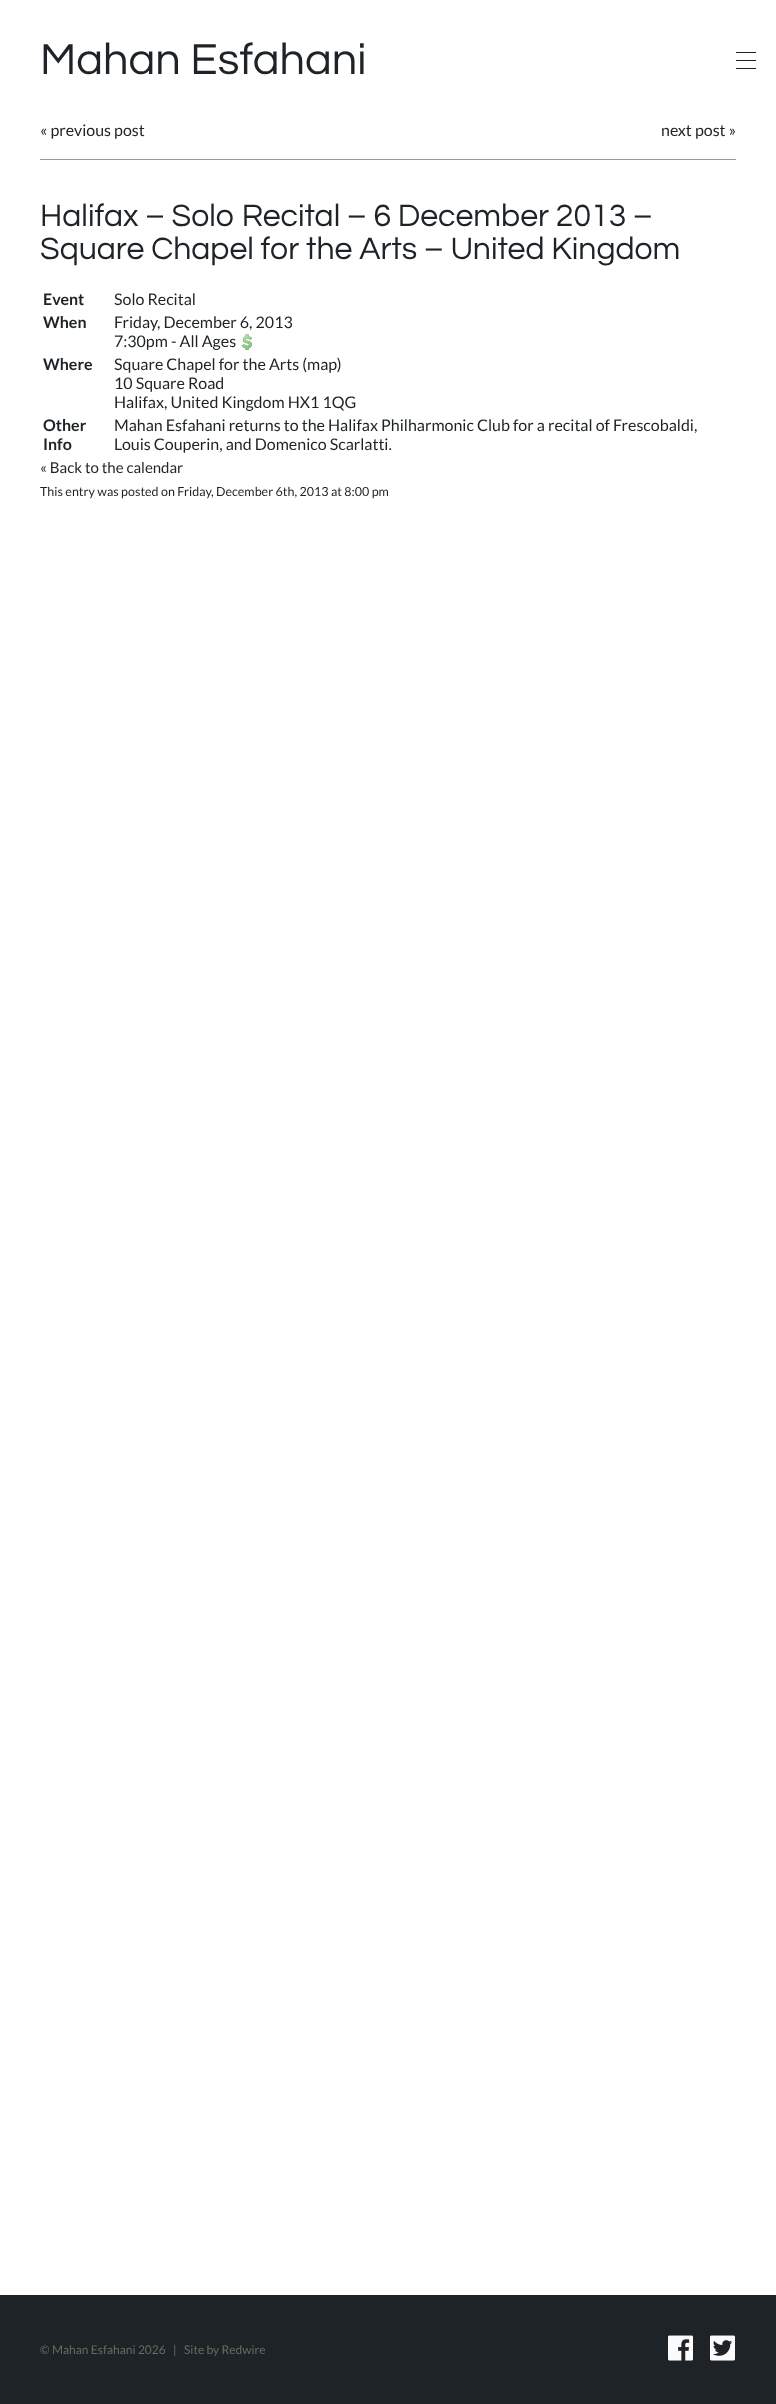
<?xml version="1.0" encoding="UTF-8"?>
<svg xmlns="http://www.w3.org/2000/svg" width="776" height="2404">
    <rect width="100%" height="100%" fill="#FFFFFF"/>
    <text x="40" y="74" font-family="Questrial" font-size="45" fill="#1D2326">Mahan Esfahani</text>
    <rect x="736" y="52" width="20" height="1" fill="#1D2326"/>
    <rect x="736" y="60" width="20" height="1" fill="#1D2326"/>
    <rect x="736" y="68" width="20" height="1" fill="#1D2326"/>
    <rect x="40" y="159" width="696" height="1" fill="#96989A"/>
    <text x="40" y="136" font-family="Lato" font-size="16" fill="#1D2326">« previous post</text>
    <text x="661" y="136" font-family="Lato" font-size="16" fill="#1D2326">next post »</text>
    <text font-family="Questrial" font-size="32" fill="#1D2326">
        <tspan x="40" y="226">Halifax – Solo Recital – 6 December 2013 –</tspan>
        <tspan x="40" y="259">Square Chapel for the Arts – United Kingdom</tspan>
    </text>
    <text x="43" y="305" font-family="Lato" font-size="16" font-weight="700" fill="#1D2326">Event</text>
    <text x="114" y="305" font-family="Lato" font-size="16" fill="#1D2326">Solo Recital</text>
    <text x="43" y="328" font-family="Lato" font-size="16" font-weight="700" fill="#1D2326">When</text>
    <text font-family="Lato" font-size="16" fill="#1D2326">
        <tspan x="114" y="328">Friday, December 6, 2013</tspan>
        <tspan x="114" y="347">7:30pm - All Ages</tspan>
    </text>
    <image x="241" y="334" width="11" height="16" href="img_01.png"/>
    <text x="43" y="370" font-family="Lato" font-size="16" font-weight="700" fill="#1D2326">Where</text>
    <text font-family="Lato" font-size="16" fill="#1D2326">
        <tspan x="114" y="370">Square Chapel for the Arts (map)</tspan>
        <tspan x="114" y="389">10 Square Road</tspan>
        <tspan x="114" y="408">Halifax, United Kingdom HX1 1QG</tspan>
    </text>
    <text font-family="Lato" font-size="16" font-weight="700" fill="#1D2326">
        <tspan x="43" y="431">Other</tspan>
        <tspan x="43" y="450">Info</tspan>
    </text>
    <text font-family="Lato" font-size="16" fill="#1D2326">
        <tspan x="114" y="431">Mahan Esfahani returns to the Halifax Philharmonic Club for a recital of Frescobaldi,</tspan>
        <tspan x="114" y="450">Louis Couperin, and Domenico Scarlatti.</tspan>
    </text>
    <text x="40" y="473" font-family="Lato" font-size="15" fill="#1D2326">« Back to the calendar</text>
    <text x="40" y="496" font-family="Lato" font-size="12.5" fill="#1D2326">This entry was posted on Friday, December 6th, 2013 at 8:00 pm</text>
    <rect x="0" y="2295" width="776" height="109" fill="#1D2326"/>
    <text x="40" y="2354" font-family="Lato" font-size="12" fill="#6A6A60">© Mahan Esfahani 2026</text>
    <text x="173" y="2354" font-family="Lato" font-size="12" fill="#6A6A60">|</text>
    <text x="184" y="2354" font-family="Lato" font-size="12" fill="#6A6A60">Site by Redwire</text>
    <image x="668" y="2335" width="25" height="26" href="img_02.png"/>
    <image x="710" y="2335" width="25" height="26" href="img_03.png"/>
</svg>
